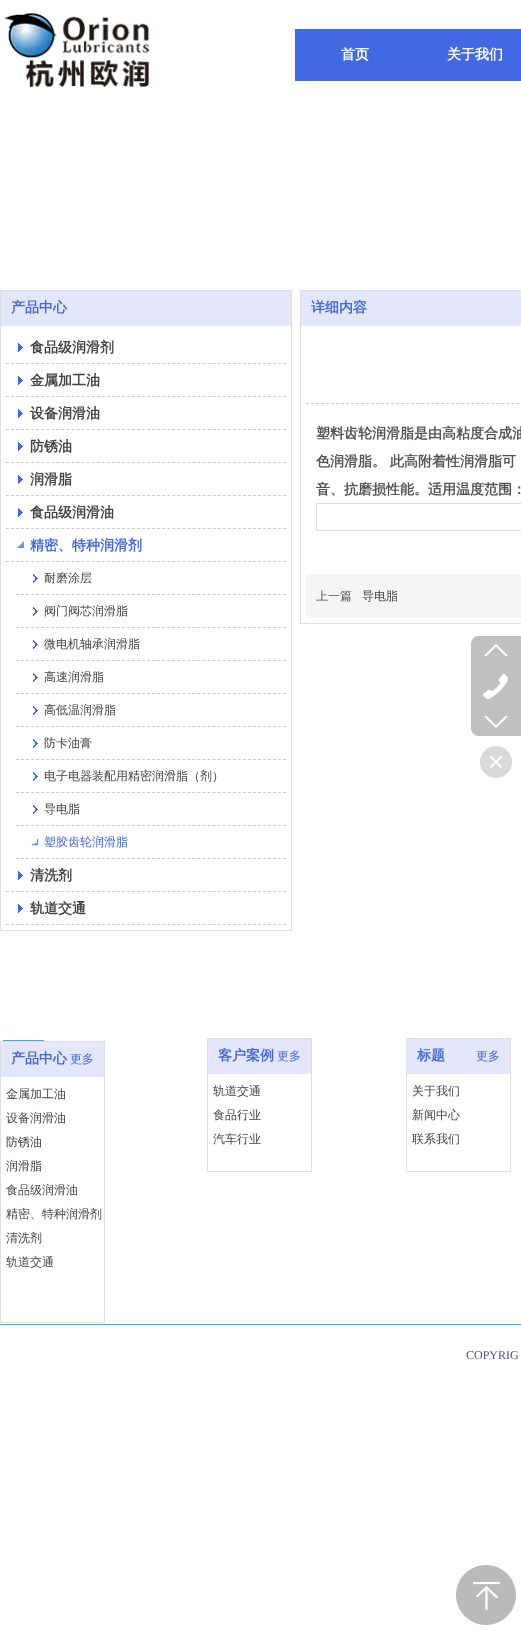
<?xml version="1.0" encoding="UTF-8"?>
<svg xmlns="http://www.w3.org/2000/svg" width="521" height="1630">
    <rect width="100%" height="100%" fill="#FFFFFF"/>
    <image x="4" y="12" width="146" height="75" href="img_01.png"/>
    <rect x="295" y="29" width="226" height="52" fill="#4169E2"/>
    <text x="341" y="59" font-family="WenQuanYi Zen Hei" font-size="14" font-weight="700" fill="#FFFFFF">首页</text>
    <text x="447" y="59" font-family="WenQuanYi Zen Hei" font-size="14" font-weight="700" fill="#FFFFFF">关于我们</text>
    <rect x="0.5" y="290.5" width="291" height="640" fill="none" stroke="#E0DFDD"/>
    <rect x="1" y="291" width="290" height="35" fill="#E4E6FB"/>
    <text x="11" y="312" font-family="WenQuanYi Zen Hei" font-size="14" font-weight="700" fill="#4269E0">产品中心</text>
    <path d="M 6 363.5 H 286" fill="none" stroke="#CCCCCC" stroke-dasharray="3 2.04"/>
    <image x="18" y="343" width="5" height="9" href="img_02.png"/>
    <text x="30" y="352" font-family="WenQuanYi Zen Hei" font-size="14" font-weight="700" fill="#434343">食品级润滑剂</text>
    <path d="M 6 396.5 H 286" fill="none" stroke="#CCCCCC" stroke-dasharray="3 2.04"/>
    <image x="18" y="376" width="5" height="9" href="img_02.png"/>
    <text x="30" y="385" font-family="WenQuanYi Zen Hei" font-size="14" font-weight="700" fill="#434343">金属加工油</text>
    <path d="M 6 429.5 H 286" fill="none" stroke="#CCCCCC" stroke-dasharray="3 2.04"/>
    <image x="18" y="409" width="5" height="9" href="img_02.png"/>
    <text x="30" y="418" font-family="WenQuanYi Zen Hei" font-size="14" font-weight="700" fill="#434343">设备润滑油</text>
    <path d="M 6 462.5 H 286" fill="none" stroke="#CCCCCC" stroke-dasharray="3 2.04"/>
    <image x="18" y="442" width="5" height="9" href="img_02.png"/>
    <text x="30" y="451" font-family="WenQuanYi Zen Hei" font-size="14" font-weight="700" fill="#434343">防锈油</text>
    <path d="M 6 495.5 H 286" fill="none" stroke="#CCCCCC" stroke-dasharray="3 2.04"/>
    <image x="18" y="475" width="5" height="9" href="img_02.png"/>
    <text x="30" y="484" font-family="WenQuanYi Zen Hei" font-size="14" font-weight="700" fill="#434343">润滑脂</text>
    <path d="M 6 528.5 H 286" fill="none" stroke="#CCCCCC" stroke-dasharray="3 2.04"/>
    <image x="18" y="508" width="5" height="9" href="img_02.png"/>
    <text x="30" y="517" font-family="WenQuanYi Zen Hei" font-size="14" font-weight="700" fill="#434343">食品级润滑油</text>
    <path d="M 6 561.5 H 286" fill="none" stroke="#CCCCCC" stroke-dasharray="3 2.04"/>
    <image x="17" y="541" width="7" height="7" href="img_03.png"/>
    <text x="30" y="550" font-family="WenQuanYi Zen Hei" font-size="14" font-weight="700" fill="#4269E0">精密、特种润滑剂</text>
    <path d="M 16 594.5 H 286" fill="none" stroke="#CCCCCC" stroke-dasharray="3 2.04"/>
    <image x="33" y="574" width="5" height="9" href="img_04.png"/>
    <text x="44" y="582" font-family="WenQuanYi Zen Hei" font-size="12" font-weight="500" fill="#434343">耐磨涂层</text>
    <path d="M 16 627.5 H 286" fill="none" stroke="#CCCCCC" stroke-dasharray="3 2.04"/>
    <image x="33" y="607" width="5" height="9" href="img_04.png"/>
    <text x="44" y="615" font-family="WenQuanYi Zen Hei" font-size="12" font-weight="500" fill="#434343">阀门阀芯润滑脂</text>
    <path d="M 16 660.5 H 286" fill="none" stroke="#CCCCCC" stroke-dasharray="3 2.04"/>
    <image x="33" y="640" width="5" height="9" href="img_04.png"/>
    <text x="44" y="648" font-family="WenQuanYi Zen Hei" font-size="12" font-weight="500" fill="#434343">微电机轴承润滑脂</text>
    <path d="M 16 693.5 H 286" fill="none" stroke="#CCCCCC" stroke-dasharray="3 2.04"/>
    <image x="33" y="673" width="5" height="9" href="img_04.png"/>
    <text x="44" y="681" font-family="WenQuanYi Zen Hei" font-size="12" font-weight="500" fill="#434343">高速润滑脂</text>
    <path d="M 16 726.5 H 286" fill="none" stroke="#CCCCCC" stroke-dasharray="3 2.04"/>
    <image x="33" y="706" width="5" height="9" href="img_04.png"/>
    <text x="44" y="714" font-family="WenQuanYi Zen Hei" font-size="12" font-weight="500" fill="#434343">高低温润滑脂</text>
    <path d="M 16 759.5 H 286" fill="none" stroke="#CCCCCC" stroke-dasharray="3 2.04"/>
    <image x="33" y="739" width="5" height="9" href="img_04.png"/>
    <text x="44" y="747" font-family="WenQuanYi Zen Hei" font-size="12" font-weight="500" fill="#434343">防卡油膏</text>
    <path d="M 16 792.5 H 286" fill="none" stroke="#CCCCCC" stroke-dasharray="3 2.04"/>
    <image x="33" y="772" width="5" height="9" href="img_04.png"/>
    <text x="44" y="780" font-family="WenQuanYi Zen Hei" font-size="12" font-weight="500" fill="#434343">电子电器装配用精密润滑脂（剂）</text>
    <path d="M 16 825.5 H 286" fill="none" stroke="#CCCCCC" stroke-dasharray="3 2.04"/>
    <image x="33" y="805" width="5" height="9" href="img_04.png"/>
    <text x="44" y="813" font-family="WenQuanYi Zen Hei" font-size="12" font-weight="500" fill="#434343">导电脂</text>
    <path d="M 16 858.5 H 286" fill="none" stroke="#CCCCCC" stroke-dasharray="3 2.04"/>
    <image x="31" y="838" width="8" height="8" href="img_05.png"/>
    <text x="44" y="846" font-family="WenQuanYi Zen Hei" font-size="12" font-weight="500" fill="#4269E0">塑胶齿轮润滑脂</text>
    <path d="M 6 891.5 H 286" fill="none" stroke="#CCCCCC" stroke-dasharray="3 2.04"/>
    <image x="18" y="871" width="5" height="9" href="img_02.png"/>
    <text x="30" y="880" font-family="WenQuanYi Zen Hei" font-size="14" font-weight="700" fill="#434343">清洗剂</text>
    <path d="M 6 924.5 H 286" fill="none" stroke="#CCCCCC" stroke-dasharray="3 2.04"/>
    <image x="18" y="904" width="5" height="9" href="img_02.png"/>
    <text x="30" y="913" font-family="WenQuanYi Zen Hei" font-size="14" font-weight="700" fill="#434343">轨道交通</text>
    <rect x="300.5" y="290.5" width="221" height="333" fill="none" stroke="#E0DFDD"/>
    <rect x="301" y="291" width="220" height="35" fill="#E4E6FB"/>
    <text x="311" y="312" font-family="WenQuanYi Zen Hei" font-size="14" font-weight="700" fill="#4269E0">详细内容</text>
    <path d="M 306 403.5 H 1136" fill="none" stroke="#CCCCCC" stroke-dasharray="3 2.01"/>
    <text x="316" y="438" font-family="WenQuanYi Zen Hei" font-size="14" font-weight="700" fill="#545454">塑料齿轮润滑脂是由高粘度合成油</text>
    <text x="316" y="466" font-family="WenQuanYi Zen Hei" font-size="14" font-weight="700" fill="#545454">色润滑脂。</text>
    <text x="390" y="466" font-family="WenQuanYi Zen Hei" font-size="14" font-weight="700" fill="#545454">此高附着性润滑脂可</text>
    <text x="316" y="494" font-family="WenQuanYi Zen Hei" font-size="14" font-weight="700" fill="#545454">音、抗磨损性能。适用温度范围：</text>
    <rect x="316" y="503" width="205" height="1" fill="#DDDDDD"/>
    <rect x="316" y="530" width="205" height="1" fill="#DDDDDD"/>
    <rect x="316" y="503" width="1" height="28" fill="#DDDDDD"/>
    <rect x="306" y="574" width="215" height="44" fill="#F5F5F5"/>
    <text x="316" y="600" font-family="WenQuanYi Zen Hei" font-size="12" font-weight="500" fill="#545454">上一篇</text>
    <text x="362" y="600" font-family="WenQuanYi Zen Hei" font-size="12" font-weight="500" fill="#434343">导电脂</text>
    <image x="471" y="636" width="7" height="7" href="img_06.png"/>
    <rect x="478" y="636" width="43" height="7" fill="#C1BFC0"/>
    <rect x="471" y="643" width="50" height="86" fill="#C1BFC0"/>
    <image x="484" y="644" width="24" height="12" href="img_07.png"/>
    <image x="483" y="674" width="25" height="25" href="img_08.png"/>
    <image x="484" y="716" width="24" height="12" href="img_09.png"/>
    <image x="471" y="729" width="7" height="7" href="img_10.png"/>
    <rect x="478" y="729" width="43" height="7" fill="#C1BFC0"/>
    <image x="480" y="746" width="32" height="32" href="img_11.png"/>
    <rect x="3" y="1040" width="41" height="1" fill="#36B0F3"/>
    <rect x="0.5" y="1041.5" width="104" height="281" fill="none" stroke="#E0DFDD"/>
    <rect x="1" y="1042" width="103" height="35" fill="#E4E6FB"/>
    <text x="11" y="1063" font-family="WenQuanYi Zen Hei" font-size="14" font-weight="700" fill="#4269E0">产品中心</text>
    <text x="70" y="1063" font-family="WenQuanYi Zen Hei" font-size="12" font-weight="500" fill="#4269E0">更多</text>
    <text x="6" y="1098" font-family="WenQuanYi Zen Hei" font-size="12" font-weight="500" fill="#434343">金属加工油</text>
    <text x="6" y="1122" font-family="WenQuanYi Zen Hei" font-size="12" font-weight="500" fill="#434343">设备润滑油</text>
    <text x="6" y="1146" font-family="WenQuanYi Zen Hei" font-size="12" font-weight="500" fill="#434343">防锈油</text>
    <text x="6" y="1170" font-family="WenQuanYi Zen Hei" font-size="12" font-weight="500" fill="#434343">润滑脂</text>
    <text x="6" y="1194" font-family="WenQuanYi Zen Hei" font-size="12" font-weight="500" fill="#434343">食品级润滑油</text>
    <text x="6" y="1218" font-family="WenQuanYi Zen Hei" font-size="12" font-weight="500" fill="#434343">精密、特种润滑剂</text>
    <text x="6" y="1242" font-family="WenQuanYi Zen Hei" font-size="12" font-weight="500" fill="#434343">清洗剂</text>
    <text x="6" y="1266" font-family="WenQuanYi Zen Hei" font-size="12" font-weight="500" fill="#434343">轨道交通</text>
    <rect x="207.5" y="1038.5" width="104" height="133" fill="none" stroke="#E0DFDD"/>
    <rect x="208" y="1039" width="103" height="35" fill="#E4E6FB"/>
    <text x="218" y="1060" font-family="WenQuanYi Zen Hei" font-size="14" font-weight="700" fill="#4269E0">客户案例</text>
    <text x="277" y="1060" font-family="WenQuanYi Zen Hei" font-size="12" font-weight="500" fill="#4269E0">更多</text>
    <text x="213" y="1095" font-family="WenQuanYi Zen Hei" font-size="12" font-weight="500" fill="#434343">轨道交通</text>
    <text x="213" y="1119" font-family="WenQuanYi Zen Hei" font-size="12" font-weight="500" fill="#434343">食品行业</text>
    <text x="213" y="1143" font-family="WenQuanYi Zen Hei" font-size="12" font-weight="500" fill="#434343">汽车行业</text>
    <rect x="406.5" y="1038.5" width="104" height="133" fill="none" stroke="#E0DFDD"/>
    <rect x="407" y="1039" width="103" height="35" fill="#E4E6FB"/>
    <text x="417" y="1060" font-family="WenQuanYi Zen Hei" font-size="14" font-weight="700" fill="#4269E0">标题</text>
    <text x="476" y="1060" font-family="WenQuanYi Zen Hei" font-size="12" font-weight="500" fill="#4269E0">更多</text>
    <text x="412" y="1095" font-family="WenQuanYi Zen Hei" font-size="12" font-weight="500" fill="#434343">关于我们</text>
    <text x="412" y="1119" font-family="WenQuanYi Zen Hei" font-size="12" font-weight="500" fill="#434343">新闻中心</text>
    <text x="412" y="1143" font-family="WenQuanYi Zen Hei" font-size="12" font-weight="500" fill="#434343">联系我们</text>
    <rect x="0" y="1324" width="521" height="1" fill="#36B0F3"/>
    <text x="466" y="1359" font-family="Liberation Serif" font-size="12" fill="#515181">COPYRIG</text>
    <image x="456" y="1565" width="60" height="60" href="img_12.png"/>
</svg>
